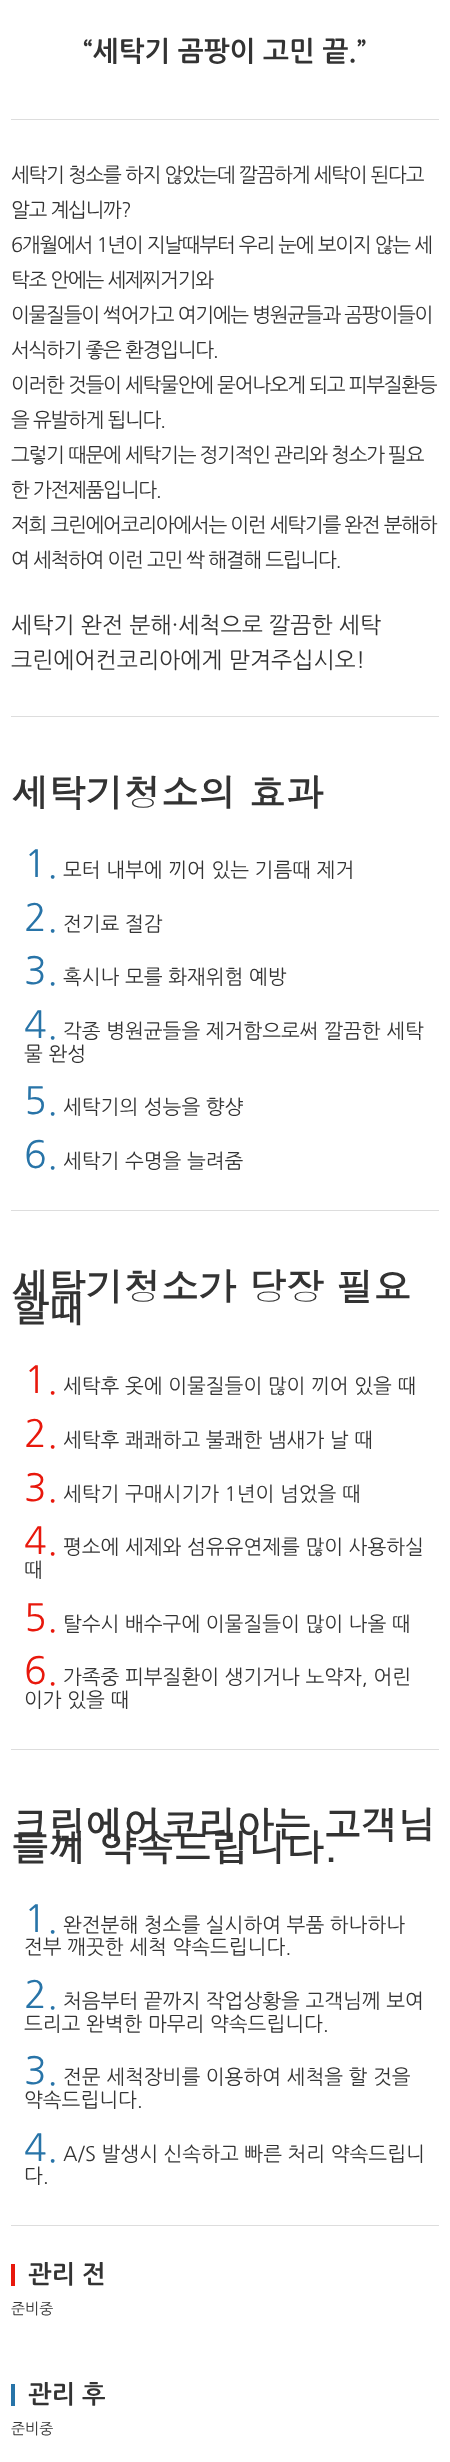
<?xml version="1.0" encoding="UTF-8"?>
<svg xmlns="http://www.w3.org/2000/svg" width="450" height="2462">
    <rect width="100%" height="100%" fill="#FFFFFF"/>
    <text x="83" y="61" font-family="NanumGothic" font-size="27.5" font-weight="700" fill="#333333">“세탁기 곰팡이 고민 끝.”</text>
    <rect x="11" y="119" width="428" height="1" fill="#DDDDDD"/>
    <text font-family="NanumGothic" font-size="20" letter-spacing="-1.25" fill="#333333">
        <tspan x="11" y="182">세탁기 청소를 하지 않았는데 깔끔하게 세탁이 된다고</tspan>
        <tspan x="11" y="217">알고 계십니까?</tspan>
        <tspan x="11" y="252">6개월에서 1년이 지날때부터 우리 눈에 보이지 않는 세</tspan>
        <tspan x="11" y="287">탁조 안에는 세제찌거기와</tspan>
        <tspan x="11" y="322">이물질들이 썩어가고 여기에는 병원균들과 곰팡이들이</tspan>
        <tspan x="11" y="357">서식하기 좋은 환경입니다.</tspan>
        <tspan x="11" y="392">이러한 것들이 세탁물안에 묻어나오게 되고 피부질환등</tspan>
        <tspan x="11" y="427">을 유발하게 됩니다.</tspan>
        <tspan x="11" y="462">그렇기 때문에 세탁기는 정기적인 관리와 청소가 필요</tspan>
        <tspan x="11" y="497">한 가전제품입니다.</tspan>
        <tspan x="11" y="532">저희 크린에어코리아에서는 이런 세탁기를 완전 분해하</tspan>
        <tspan x="11" y="567">여 세척하여 이런 고민 싹 해결해 드립니다.</tspan>
    </text>
    <text font-family="NanumGothic" font-size="22.5" fill="#333333">
        <tspan x="11" y="633">세탁기 완전 분해·세척으로 깔끔한 세탁</tspan>
        <tspan x="11" y="668">크린에어컨코리아에게 맏겨주십시오!</tspan>
    </text>
    <rect x="11" y="716" width="428" height="1" fill="#DDDDDD"/>
    <text x="11" y="807" font-family="Dotum" font-size="37.5" font-weight="700" fill="#333333">세탁기청소의 효과</text>
    <text x="24" y="877" font-family="NanumGothic" font-size="37.5" fill="#2874A8">1.</text>
    <text x="63" y="877" font-family="NanumGothic" font-size="20" fill="#333333">모터 내부에 끼어 있는 기름때 제거</text>
    <text x="24" y="931" font-family="NanumGothic" font-size="37.5" fill="#2874A8">2.</text>
    <text x="63" y="931" font-family="NanumGothic" font-size="20" fill="#333333">전기료 절감</text>
    <text x="24" y="984" font-family="NanumGothic" font-size="37.5" fill="#2874A8">3.</text>
    <text x="63" y="984" font-family="NanumGothic" font-size="20" fill="#333333">혹시나 모를 화재위험 예방</text>
    <text x="24" y="1038" font-family="NanumGothic" font-size="37.5" fill="#2874A8">4.</text>
    <text x="63" y="1038" font-family="NanumGothic" font-size="20" fill="#333333">각종 병원균들을 제거함으로써 깔끔한 세탁</text>
    <text x="24" y="1061" font-family="NanumGothic" font-size="20" fill="#333333">물 완성</text>
    <text x="24" y="1114" font-family="NanumGothic" font-size="37.5" fill="#2874A8">5.</text>
    <text x="63" y="1114" font-family="NanumGothic" font-size="20" fill="#333333">세탁기의 성능을 향샹</text>
    <text x="24" y="1168" font-family="NanumGothic" font-size="37.5" fill="#2874A8">6.</text>
    <text x="63" y="1168" font-family="NanumGothic" font-size="20" fill="#333333">세탁기 수명을 늘려줌</text>
    <rect x="11" y="1210" width="428" height="1" fill="#DDDDDD"/>
    <text font-family="Dotum" font-size="37.5" font-weight="700" fill="#333333">
        <tspan x="11" y="1301">세탁기청소가 당장 필요</tspan>
        <tspan x="11" y="1323">할때</tspan>
    </text>
    <text x="24" y="1393" font-family="NanumGothic" font-size="37.5" fill="#E8180C">1.</text>
    <text x="63" y="1393" font-family="NanumGothic" font-size="20" fill="#333333">세탁후 옷에 이물질들이 많이 끼어 있을 때</text>
    <text x="24" y="1447" font-family="NanumGothic" font-size="37.5" fill="#E8180C">2.</text>
    <text x="63" y="1447" font-family="NanumGothic" font-size="20" fill="#333333">세탁후 쾌쾌하고 불쾌한 냄새가 날 때</text>
    <text x="24" y="1501" font-family="NanumGothic" font-size="37.5" fill="#E8180C">3.</text>
    <text x="63" y="1501" font-family="NanumGothic" font-size="20" fill="#333333">세탁기 구매시기가 1년이 넘었을 때</text>
    <text x="24" y="1554" font-family="NanumGothic" font-size="37.5" fill="#E8180C">4.</text>
    <text x="63" y="1554" font-family="NanumGothic" font-size="20" fill="#333333">평소에 세제와 섬유유연제를 많이 사용하실</text>
    <text x="24" y="1577" font-family="NanumGothic" font-size="20" fill="#333333">때</text>
    <text x="24" y="1631" font-family="NanumGothic" font-size="37.5" fill="#E8180C">5.</text>
    <text x="63" y="1631" font-family="NanumGothic" font-size="20" fill="#333333">탈수시 배수구에 이물질들이 많이 나올 때</text>
    <text x="24" y="1684" font-family="NanumGothic" font-size="37.5" fill="#E8180C">6.</text>
    <text x="63" y="1684" font-family="NanumGothic" font-size="20" fill="#333333">가족중 피부질환이 생기거나 노약자, 어린</text>
    <text x="24" y="1707" font-family="NanumGothic" font-size="20" fill="#333333">이가 있을 때</text>
    <rect x="11" y="1749" width="428" height="1" fill="#DDDDDD"/>
    <text font-family="Dotum" font-size="37.5" font-weight="700" fill="#333333">
        <tspan x="11" y="1839">크린에어코리아는 고객님</tspan>
        <tspan x="11" y="1862">들께 약속드립니다.</tspan>
    </text>
    <text x="24" y="1932" font-family="NanumGothic" font-size="37.5" fill="#2874A8">1.</text>
    <text x="63" y="1932" font-family="NanumGothic" font-size="20" fill="#333333">완전분해 청소를 실시하여 부품 하나하나</text>
    <text x="24" y="1954" font-family="NanumGothic" font-size="20" fill="#333333">전부 깨끗한 세척 약속드립니다.</text>
    <text x="24" y="2008" font-family="NanumGothic" font-size="37.5" fill="#2874A8">2.</text>
    <text x="63" y="2008" font-family="NanumGothic" font-size="20" fill="#333333">처음부터 끝까지 작업상황을 고객님께 보여</text>
    <text x="24" y="2031" font-family="NanumGothic" font-size="20" fill="#333333">드리고 완벽한 마무리 약속드립니다.</text>
    <text x="24" y="2084" font-family="NanumGothic" font-size="37.5" fill="#2874A8">3.</text>
    <text x="63" y="2084" font-family="NanumGothic" font-size="20" fill="#333333">전문 세척장비를 이용하여 세척을 할 것을</text>
    <text x="24" y="2107" font-family="NanumGothic" font-size="20" fill="#333333">약속드립니다.</text>
    <text x="24" y="2161" font-family="NanumGothic" font-size="37.5" fill="#2874A8">4.</text>
    <text x="63" y="2161" font-family="NanumGothic" font-size="20" fill="#333333">A/S 발생시 신속하고 빠른 처리 약속드립니</text>
    <text x="24" y="2183" font-family="NanumGothic" font-size="20" fill="#333333">다.</text>
    <rect x="11" y="2225" width="428" height="1" fill="#DDDDDD"/>
    <rect x="11" y="2264" width="4" height="22" fill="#E8180C"/>
    <text x="28" y="2283" font-family="NanumGothic" font-size="25" font-weight="700" fill="#333333">관리 전</text>
    <text x="11" y="2314" font-family="NanumGothic" font-size="15" fill="#333333">준비중</text>
    <rect x="11" y="2384" width="4" height="22" fill="#2874A8"/>
    <text x="28" y="2403" font-family="NanumGothic" font-size="25" font-weight="700" fill="#333333">관리 후</text>
    <text x="11" y="2434" font-family="NanumGothic" font-size="15" fill="#333333">준비중</text>
</svg>
